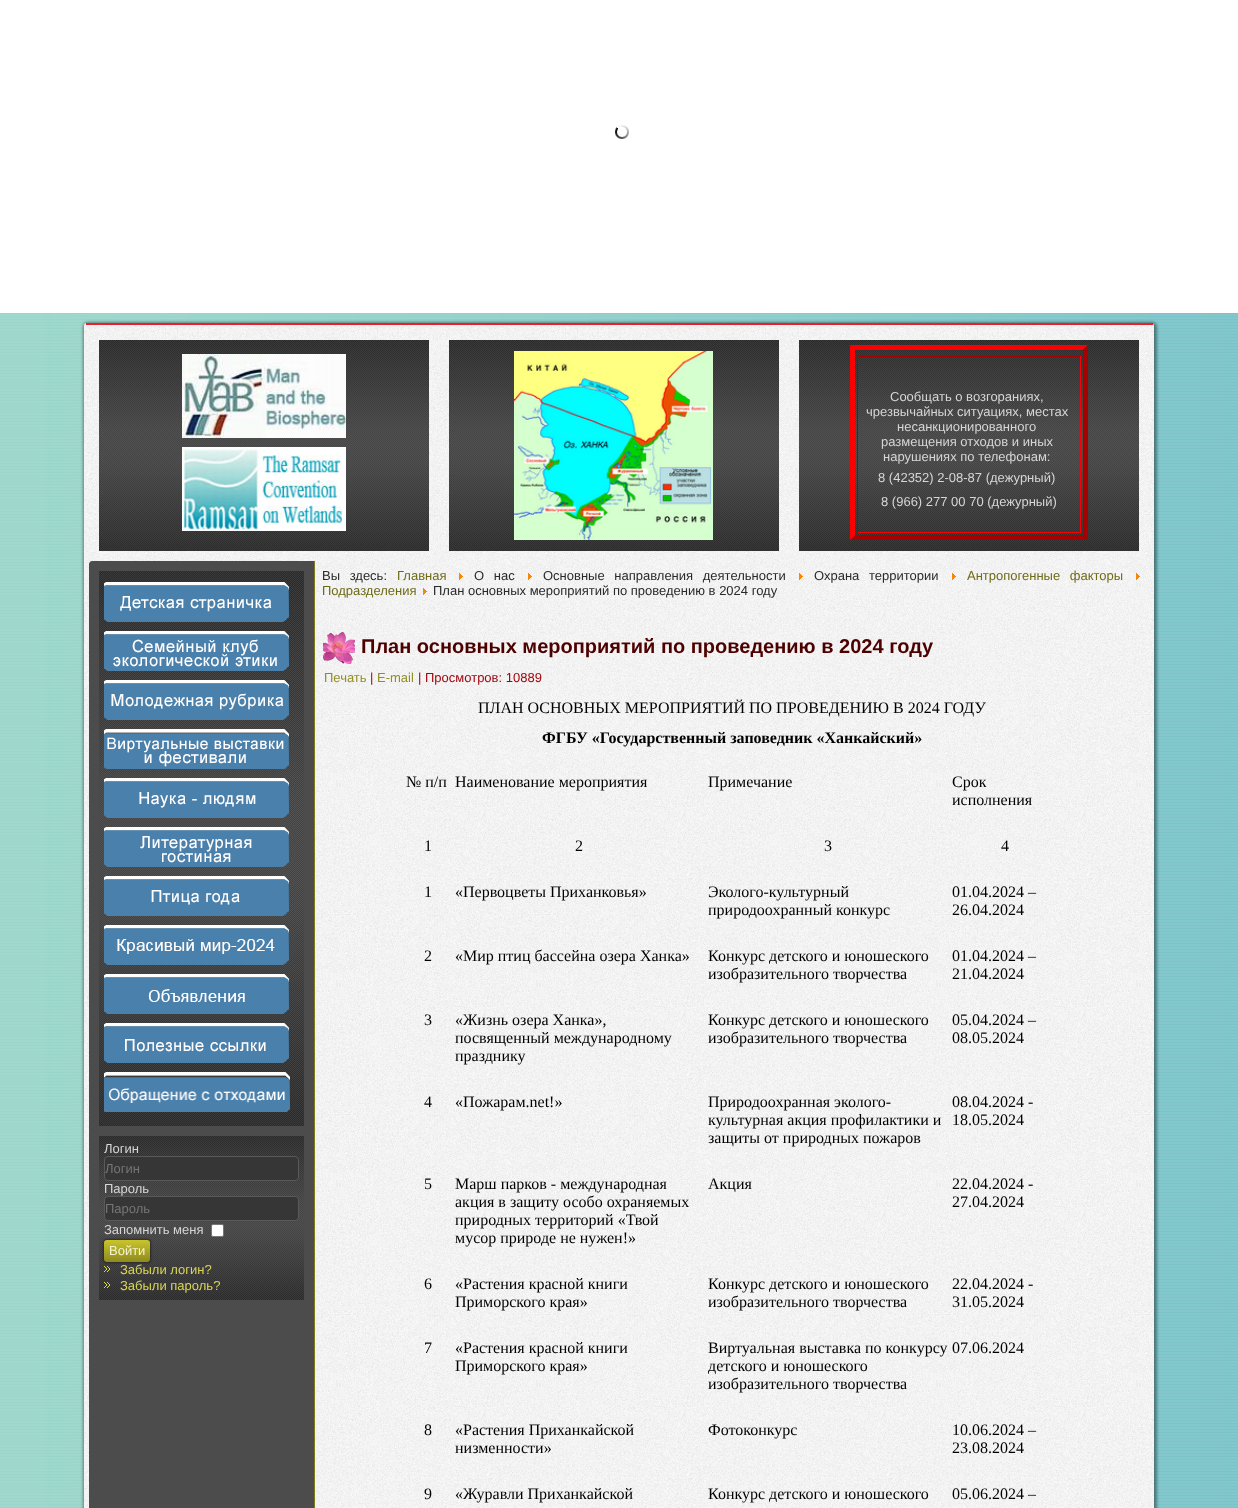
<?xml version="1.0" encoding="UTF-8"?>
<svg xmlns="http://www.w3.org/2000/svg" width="1238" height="1508">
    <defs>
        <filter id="blur1" x="-50%" y="-200%" width="200%" height="500%"><feGaussianBlur stdDeviation="1.5"/></filter>
        <filter id="blur2" x="-50%" y="-200%" width="200%" height="500%"><feGaussianBlur stdDeviation="1"/></filter>
        <linearGradient id="g1" gradientUnits="userSpaceOnUse" x1="127" y1="1240" x2="127" y2="1262"><stop offset="0" stop-color="#C9C42C"/><stop offset="1" stop-color="#8E8A1F"/></linearGradient>
    </defs>
    <rect width="100%" height="100%" fill="#FFFFFF"/>
    <image x="0" y="313" width="1238" height="1195" href="img_01.png"/>
    <image x="615" y="125" width="14" height="14" href="img_02.png"/>
    <rect x="83" y="322" width="1074" height="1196" rx="5" fill="#000000" fill-opacity="0.4" filter="url(#blur1)"/>
    <image x="84" y="323" width="1070" height="1185" href="img_03.png"/>
    <rect x="86" y="323" width="1067" height="2" fill="#ED0C18" fill-opacity="0.92"/>
    <image x="99" y="340" width="330" height="211" href="img_04.png"/>
    <image x="182" y="354" width="164" height="84" href="img_05.png"/>
    <image x="182" y="447" width="164" height="84" href="img_06.png"/>
    <image x="449" y="340" width="330" height="211" href="img_07.png"/>
    <image x="514" y="351" width="199" height="189" href="img_08.png"/>
    <image x="799" y="340" width="340" height="211" href="img_09.png"/>
    <path d="M 850 345 H 1088 L 1083 350 H 855 Z" fill="#FA0000"/>
    <path d="M 1088 345 V 540 L 1083 535 V 350 Z" fill="#A70000"/>
    <path d="M 1088 540 H 850 L 855 535 H 1083 Z" fill="#A70000"/>
    <path d="M 850 540 V 345 L 855 350 V 535 Z" fill="#FA0000"/>
    <rect x="857" y="356" width="224" height="1" fill="#A70000"/>
    <rect x="1080" y="356" width="1" height="177" fill="#FA0000"/>
    <rect x="857" y="532" width="224" height="1" fill="#FA0000"/>
    <rect x="857" y="356" width="1" height="177" fill="#A70000"/>
    <text x="890" y="401" font-family="Liberation Sans" font-size="13" fill="#D6D6D6">Сообщать о возгораниях,</text>
    <text x="866" y="416" font-family="Liberation Sans" font-size="13" fill="#D6D6D6">чрезвычайных ситуациях, местах</text>
    <text x="897" y="431" font-family="Liberation Sans" font-size="13" fill="#D6D6D6">несанкционированного</text>
    <text x="881" y="446" font-family="Liberation Sans" font-size="13" fill="#D6D6D6">размещения отходов и иных</text>
    <text x="883" y="461" font-family="Liberation Sans" font-size="13" fill="#D6D6D6">нарушениях по телефонам:</text>
    <text x="878" y="482" font-family="Liberation Sans" font-size="13" fill="#D6D6D6">8 (42352) 2-08-87 (дежурный)</text>
    <text x="881" y="506" font-family="Liberation Sans" font-size="13" fill="#D6D6D6">8 (966) 277 00 70 (дежурный)</text>
    <path d="M 92 561 H 315 V 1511 H 89 V 564 C 89 562.5 90.5 561 92 561 Z" fill="#4C4C4C"/>
    <rect x="314" y="561" width="1" height="947" fill="#7D7A1C"/>
    <image x="99" y="571" width="205" height="555" href="img_10.png"/>
    <image x="104" y="582" width="185" height="40" href="img_11.png"/>
    <image x="104" y="631" width="185" height="40" href="img_12.png"/>
    <image x="104" y="680" width="185" height="40" href="img_13.png"/>
    <image x="104" y="729" width="185" height="40" href="img_14.png"/>
    <image x="104" y="778" width="185" height="40" href="img_15.png"/>
    <image x="104" y="827" width="185" height="40" href="img_16.png"/>
    <image x="104" y="876" width="185" height="40" href="img_17.png"/>
    <image x="104" y="925" width="185" height="40" href="img_18.png"/>
    <image x="104" y="974" width="185" height="40" href="img_19.png"/>
    <image x="104" y="1023" width="185" height="40" href="img_20.png"/>
    <image x="104" y="1072" width="186" height="40" href="img_21.png"/>
    <image x="99" y="1136" width="205" height="164" href="img_22.png"/>
    <text x="104" y="1153" font-family="Liberation Sans" font-size="13" fill="#D6D6D6">Логин</text>
    <rect x="104.5" y="1156.5" width="194" height="24" rx="3.5" fill="#363636" stroke="#595959"/>
    <text x="105" y="1173" font-family="Liberation Sans" font-size="13" fill="#757575">Логин</text>
    <text x="104" y="1193" font-family="Liberation Sans" font-size="13" fill="#D6D6D6">Пароль</text>
    <rect x="104.5" y="1196.5" width="194" height="24" rx="3.5" fill="#363636" stroke="#595959"/>
    <text x="105" y="1213" font-family="Liberation Sans" font-size="13" fill="#757575">Пароль</text>
    <text x="104" y="1234" font-family="Liberation Sans" font-size="13" fill="#D6D6D6">Запомнить меня</text>
    <rect x="211.5" y="1224.5" width="12" height="12" rx="1.5" fill="#FFFFFF" stroke="#767676"/>
    <rect x="103" y="1239" width="48" height="24" rx="4" fill="#000000" fill-opacity="0.4" filter="url(#blur2)"/>
    <rect x="104" y="1240" width="46" height="22" rx="3" fill="url(#g1)"/>
    <text x="109" y="1255" font-family="Liberation Sans" font-size="13" fill="#F5F4D1">Войти</text>
    <image x="104" y="1266" width="6" height="6" href="img_23.png"/>
    <text x="120" y="1274" font-family="Liberation Sans" font-size="13" fill="#DAD658">Забыли логин?</text>
    <image x="104" y="1282" width="6" height="6" href="img_24.png"/>
    <text x="120" y="1290" font-family="Liberation Sans" font-size="13" fill="#DAD658">Забыли пароль?</text>
    <text x="322" y="580" word-spacing="6" font-family="Liberation Sans" font-size="13" fill="#292929">Вы здесь:</text>
    <text x="397" y="580" font-family="Liberation Sans" font-size="13" fill="#6D6A18">Главная</text>
    <image x="459" y="573" width="4" height="7" href="img_25.png"/>
    <text x="474" y="580" word-spacing="6" font-family="Liberation Sans" font-size="13" fill="#292929">О нас</text>
    <image x="528" y="573" width="4" height="7" href="img_26.png"/>
    <text x="543" y="580" word-spacing="6" font-family="Liberation Sans" font-size="13" fill="#292929">Основные направления деятельности</text>
    <image x="799" y="573" width="4" height="7" href="img_27.png"/>
    <text x="814" y="580" word-spacing="6" font-family="Liberation Sans" font-size="13" fill="#292929">Охрана территории</text>
    <image x="952" y="573" width="4" height="7" href="img_28.png"/>
    <text x="967" y="580" word-spacing="6" font-family="Liberation Sans" font-size="13" fill="#6D6A18">Антропогенные факторы</text>
    <image x="1136" y="573" width="4" height="7" href="img_29.png"/>
    <text x="322" y="595" font-family="Liberation Sans" font-size="13" fill="#6D6A18">Подразделения</text>
    <image x="423" y="588" width="4" height="7" href="img_30.png"/>
    <text x="433" y="595" font-family="Liberation Sans" font-size="13" fill="#292929">План основных мероприятий по проведению в 2024 году</text>
    <image x="323" y="632" width="32" height="32" href="img_31.png"/>
    <text x="361" y="653" font-family="Liberation Sans" font-size="20" font-weight="700" fill="#4D0000">План основных мероприятий по проведению в 2024 году</text>
    <text x="324" y="682" font-family="Liberation Sans" font-size="13" fill="#928F20">Печать</text>
    <text x="370" y="682" font-family="Liberation Sans" font-size="13" fill="#A00810">|</text>
    <text x="377" y="682" font-family="Liberation Sans" font-size="13" fill="#928F20">E-mail</text>
    <text x="418" y="682" font-family="Liberation Sans" font-size="13" fill="#A00810">| Просмотров: 10889</text>
    <text x="478" y="713" font-family="Liberation Serif" font-size="16" fill="#000000">ПЛАН ОСНОВНЫХ МЕРОПРИЯТИЙ ПО ПРОВЕДЕНИЮ В 2024 ГОДУ</text>
    <text x="542" y="743" font-family="Liberation Serif" font-size="16" font-weight="700" fill="#000000">ФГБУ «Государственный заповедник «Ханкайский»</text>
    <text x="406" y="787" font-family="Liberation Serif" font-size="16" fill="#000000">№ п/п</text>
    <text x="455" y="787" font-family="Liberation Serif" font-size="16" fill="#000000">Наименование мероприятия</text>
    <text x="708" y="787" font-family="Liberation Serif" font-size="16" fill="#000000">Примечание</text>
    <text font-family="Liberation Serif" font-size="16" fill="#000000">
        <tspan x="952" y="787">Срок</tspan>
        <tspan x="952" y="805">исполнения</tspan>
    </text>
    <text x="424" y="851" font-family="Liberation Serif" font-size="16" fill="#000000">1</text>
    <text x="575" y="851" font-family="Liberation Serif" font-size="16" fill="#000000">2</text>
    <text x="824" y="851" font-family="Liberation Serif" font-size="16" fill="#000000">3</text>
    <text x="1001" y="851" font-family="Liberation Serif" font-size="16" fill="#000000">4</text>
    <text x="424" y="897" font-family="Liberation Serif" font-size="16" fill="#000000">1</text>
    <text x="455" y="897" font-family="Liberation Serif" font-size="16" fill="#000000">«Первоцветы Приханковья»</text>
    <text font-family="Liberation Serif" font-size="16" fill="#000000">
        <tspan x="708" y="897">Эколого-культурный</tspan>
        <tspan x="708" y="915">природоохранный конкурс</tspan>
    </text>
    <text font-family="Liberation Serif" font-size="16" fill="#000000">
        <tspan x="952" y="897">01.04.2024 –</tspan>
        <tspan x="952" y="915">26.04.2024</tspan>
    </text>
    <text x="424" y="961" font-family="Liberation Serif" font-size="16" fill="#000000">2</text>
    <text x="455" y="961" font-family="Liberation Serif" font-size="16" fill="#000000">«Мир птиц бассейна озера Ханка»</text>
    <text font-family="Liberation Serif" font-size="16" fill="#000000">
        <tspan x="708" y="961">Конкурс детского и юношеского</tspan>
        <tspan x="708" y="979">изобразительного творчества</tspan>
    </text>
    <text font-family="Liberation Serif" font-size="16" fill="#000000">
        <tspan x="952" y="961">01.04.2024 –</tspan>
        <tspan x="952" y="979">21.04.2024</tspan>
    </text>
    <text x="424" y="1025" font-family="Liberation Serif" font-size="16" fill="#000000">3</text>
    <text font-family="Liberation Serif" font-size="16" fill="#000000">
        <tspan x="455" y="1025">«Жизнь озера Ханка»,</tspan>
        <tspan x="455" y="1043">посвященный международному</tspan>
        <tspan x="455" y="1061">празднику</tspan>
    </text>
    <text font-family="Liberation Serif" font-size="16" fill="#000000">
        <tspan x="708" y="1025">Конкурс детского и юношеского</tspan>
        <tspan x="708" y="1043">изобразительного творчества</tspan>
    </text>
    <text font-family="Liberation Serif" font-size="16" fill="#000000">
        <tspan x="952" y="1025">05.04.2024 –</tspan>
        <tspan x="952" y="1043">08.05.2024</tspan>
    </text>
    <text x="424" y="1107" font-family="Liberation Serif" font-size="16" fill="#000000">4</text>
    <text x="455" y="1107" font-family="Liberation Serif" font-size="16" fill="#000000">«Пожарам.net!»</text>
    <text font-family="Liberation Serif" font-size="16" fill="#000000">
        <tspan x="708" y="1107">Природоохранная эколого-</tspan>
        <tspan x="708" y="1125">культурная акция профилактики и</tspan>
        <tspan x="708" y="1143">защиты от природных пожаров</tspan>
    </text>
    <text font-family="Liberation Serif" font-size="16" fill="#000000">
        <tspan x="952" y="1107">08.04.2024 -</tspan>
        <tspan x="952" y="1125">18.05.2024</tspan>
    </text>
    <text x="424" y="1189" font-family="Liberation Serif" font-size="16" fill="#000000">5</text>
    <text font-family="Liberation Serif" font-size="16" fill="#000000">
        <tspan x="455" y="1189">Марш парков - международная</tspan>
        <tspan x="455" y="1207">акция в защиту особо охраняемых</tspan>
        <tspan x="455" y="1225">природных территорий «Твой</tspan>
        <tspan x="455" y="1243">мусор природе не нужен!»</tspan>
    </text>
    <text x="708" y="1189" font-family="Liberation Serif" font-size="16" fill="#000000">Акция</text>
    <text font-family="Liberation Serif" font-size="16" fill="#000000">
        <tspan x="952" y="1189">22.04.2024 -</tspan>
        <tspan x="952" y="1207">27.04.2024</tspan>
    </text>
    <text x="424" y="1289" font-family="Liberation Serif" font-size="16" fill="#000000">6</text>
    <text font-family="Liberation Serif" font-size="16" fill="#000000">
        <tspan x="455" y="1289">«Растения красной книги</tspan>
        <tspan x="455" y="1307">Приморского края»</tspan>
    </text>
    <text font-family="Liberation Serif" font-size="16" fill="#000000">
        <tspan x="708" y="1289">Конкурс детского и юношеского</tspan>
        <tspan x="708" y="1307">изобразительного творчества</tspan>
    </text>
    <text font-family="Liberation Serif" font-size="16" fill="#000000">
        <tspan x="952" y="1289">22.04.2024 -</tspan>
        <tspan x="952" y="1307">31.05.2024</tspan>
    </text>
    <text x="424" y="1353" font-family="Liberation Serif" font-size="16" fill="#000000">7</text>
    <text font-family="Liberation Serif" font-size="16" fill="#000000">
        <tspan x="455" y="1353">«Растения красной книги</tspan>
        <tspan x="455" y="1371">Приморского края»</tspan>
    </text>
    <text font-family="Liberation Serif" font-size="16" fill="#000000">
        <tspan x="708" y="1353">Виртуальная выставка по конкурсу</tspan>
        <tspan x="708" y="1371">детского и юношеского</tspan>
        <tspan x="708" y="1389">изобразительного творчества</tspan>
    </text>
    <text x="952" y="1353" font-family="Liberation Serif" font-size="16" fill="#000000">07.06.2024</text>
    <text x="424" y="1435" font-family="Liberation Serif" font-size="16" fill="#000000">8</text>
    <text font-family="Liberation Serif" font-size="16" fill="#000000">
        <tspan x="455" y="1435">«Растения Приханкайской</tspan>
        <tspan x="455" y="1453">низменности»</tspan>
    </text>
    <text x="708" y="1435" font-family="Liberation Serif" font-size="16" fill="#000000">Фотоконкурс</text>
    <text font-family="Liberation Serif" font-size="16" fill="#000000">
        <tspan x="952" y="1435">10.06.2024 –</tspan>
        <tspan x="952" y="1453">23.08.2024</tspan>
    </text>
    <text x="424" y="1499" font-family="Liberation Serif" font-size="16" fill="#000000">9</text>
    <text x="455" y="1499" font-family="Liberation Serif" font-size="16" fill="#000000">«Журавли Приханкайской</text>
    <text x="708" y="1499" font-family="Liberation Serif" font-size="16" fill="#000000">Конкурс детского и юношеского</text>
    <text x="952" y="1499" font-family="Liberation Serif" font-size="16" fill="#000000">05.06.2024 –</text>
</svg>
